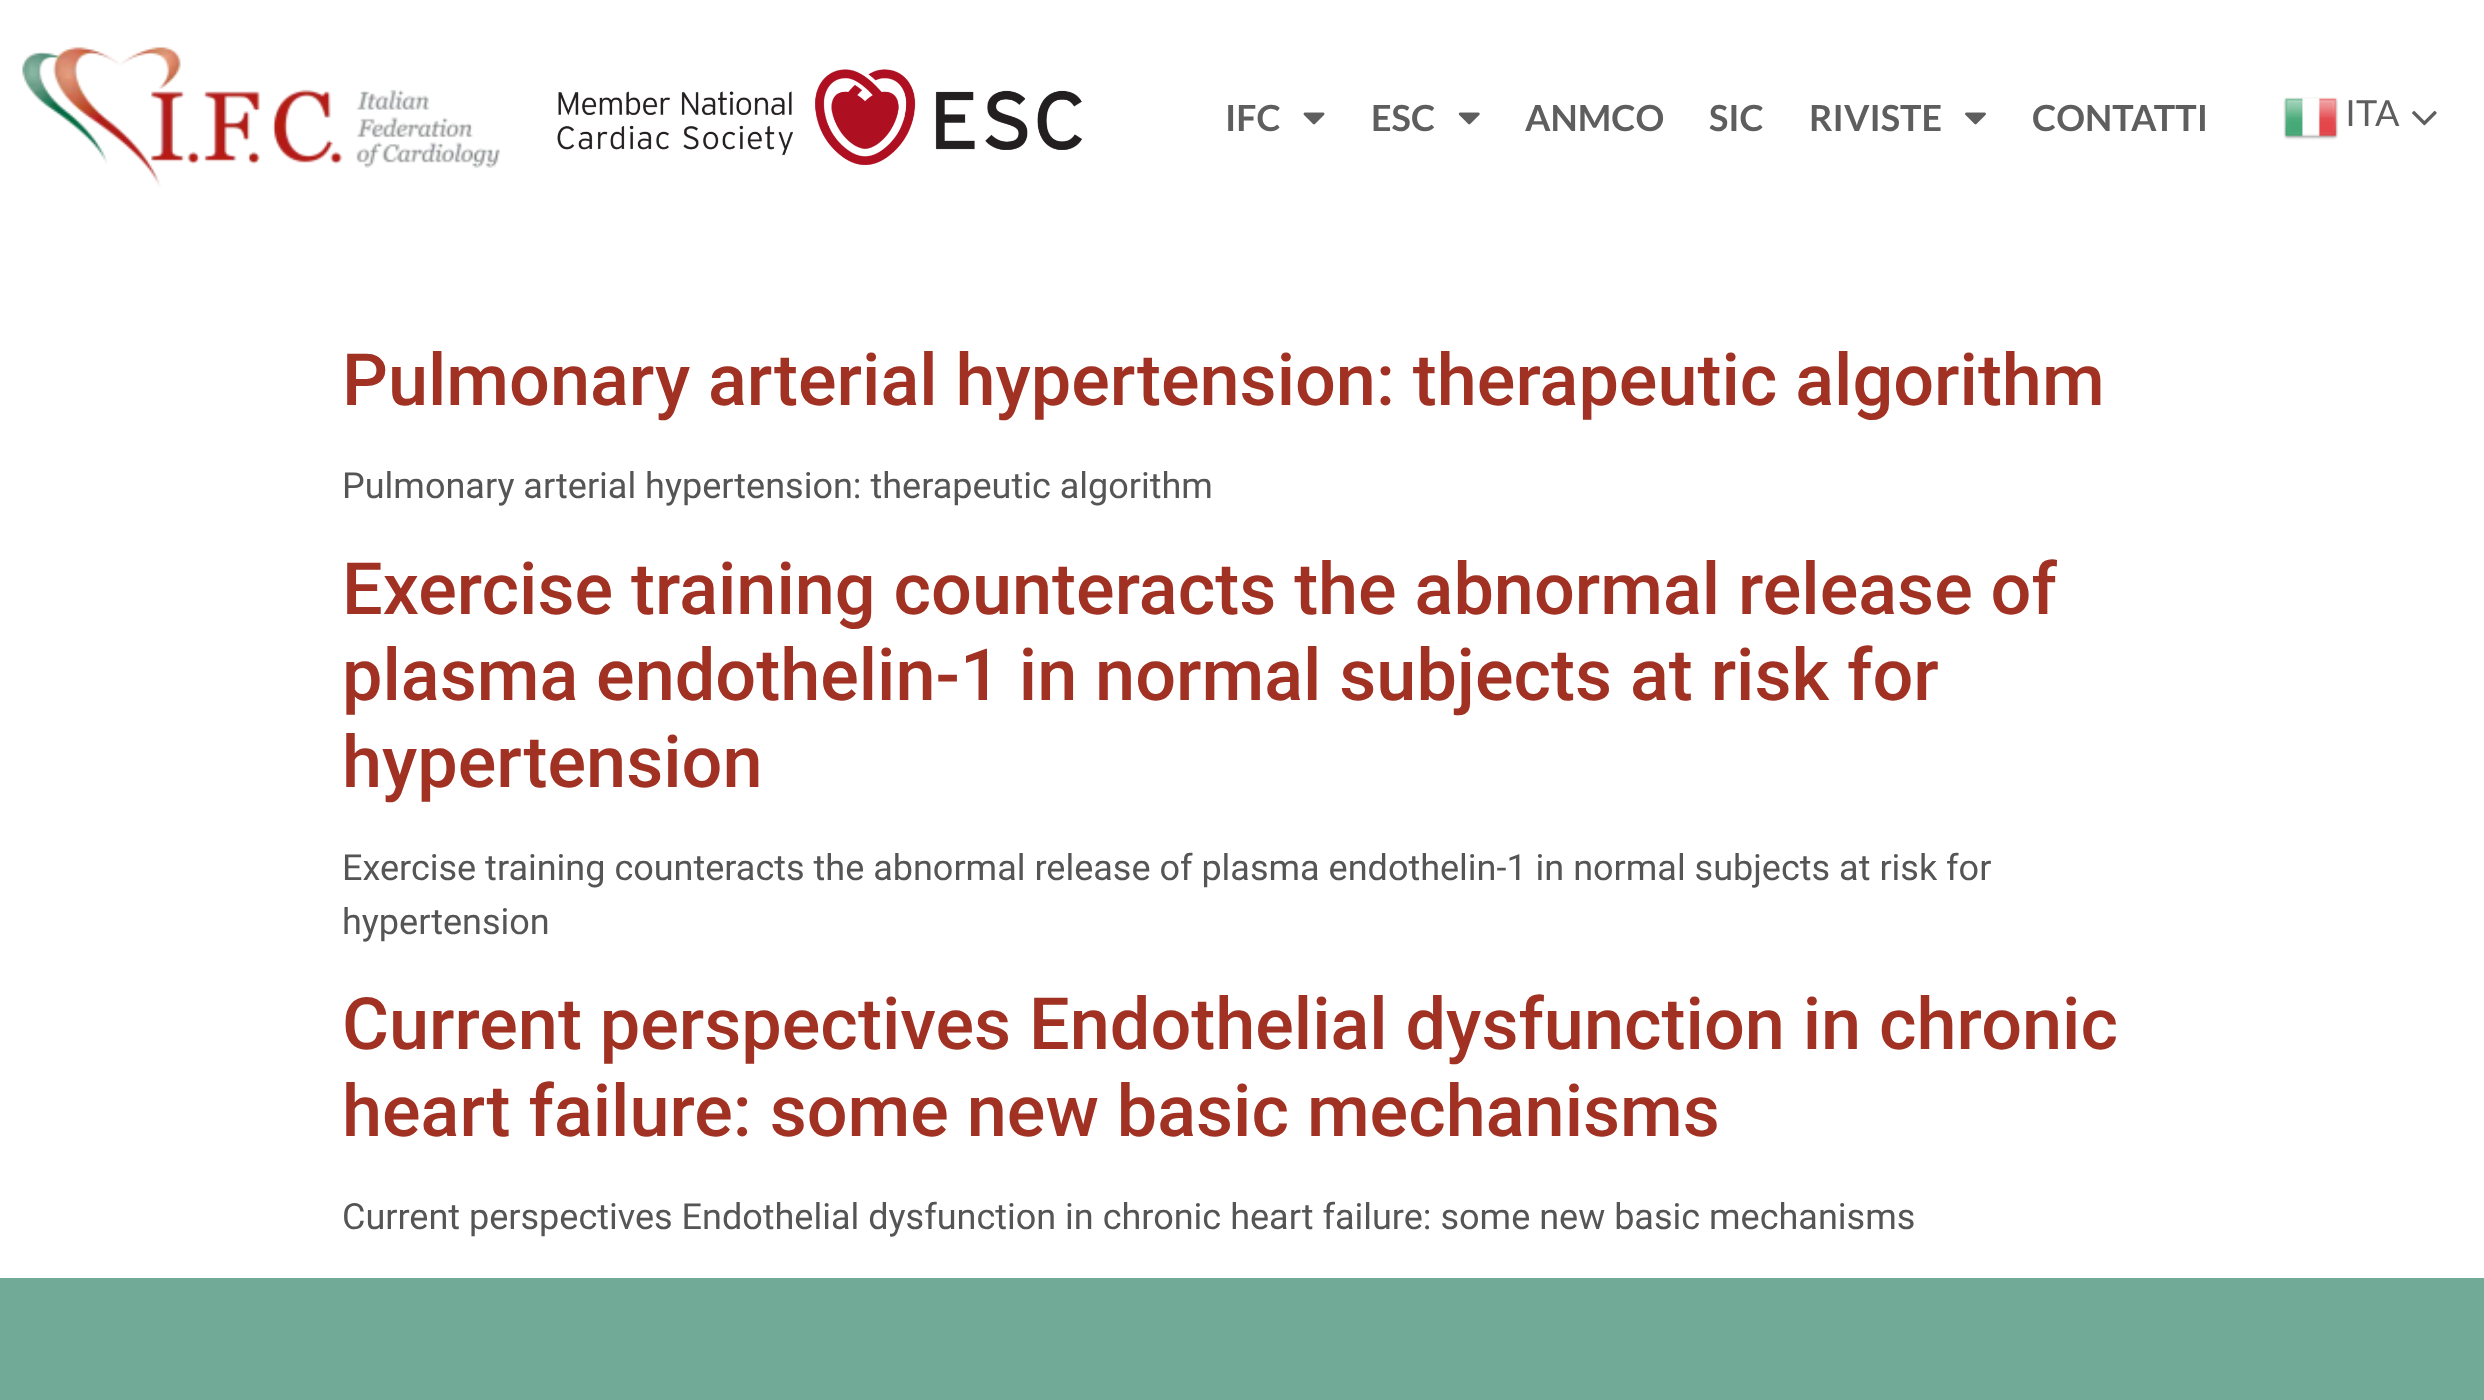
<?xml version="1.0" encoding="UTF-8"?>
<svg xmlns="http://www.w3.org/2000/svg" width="2484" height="1400">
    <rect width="100%" height="100%" fill="#FFFFFF"/>
    <image x="22" y="47" width="478" height="140" href="img_01.png"/>
    <image x="557" y="69" width="526" height="97" href="img_02.png"/>
    <text x="1225" y="131" font-family="Lato" font-size="36" font-weight="700" fill="#5E5E5E">IFC</text>
    <image x="1303" y="112" width="22" height="13" href="img_03.png"/>
    <text x="1371" y="131" font-family="Lato" font-size="36" font-weight="700" fill="#5E5E5E">ESC</text>
    <image x="1458" y="112" width="22" height="13" href="img_04.png"/>
    <text x="1525" y="131" font-family="Lato" font-size="36" font-weight="700" fill="#5E5E5E">ANMCO</text>
    <text x="1709" y="131" font-family="Lato" font-size="36" font-weight="700" fill="#5E5E5E">SIC</text>
    <text x="1809" y="131" font-family="Lato" font-size="36" font-weight="700" fill="#5E5E5E">RIVISTE</text>
    <image x="1965" y="112" width="21" height="13" href="img_05.png"/>
    <text x="2032" y="131" font-family="Lato" font-size="36" font-weight="700" fill="#5E5E5E">CONTATTI</text>
    <image x="2283" y="97" width="55" height="43" href="img_06.png"/>
    <text x="2345" y="126" font-family="Lato" font-size="36" fill="#5E5E5E">ITA</text>
    <image x="2412" y="111" width="25" height="15" href="img_07.png"/>
    <text x="342" y="405" font-family="Roboto" font-size="72" font-weight="500" fill="#A03123">Pulmonary arterial hypertension: therapeutic algorithm</text>
    <text x="342" y="498" font-family="Roboto" font-size="36" fill="#555555">Pulmonary arterial hypertension: therapeutic algorithm</text>
    <text font-family="Roboto" font-size="72" font-weight="500" fill="#A03123">
        <tspan x="342" y="614">Exercise training counteracts the abnormal release of</tspan>
        <tspan x="342" y="700">plasma endothelin-1 in normal subjects at risk for</tspan>
        <tspan x="342" y="787">hypertension</tspan>
    </text>
    <text font-family="Roboto" font-size="36" fill="#555555">
        <tspan x="342" y="880">Exercise training counteracts the abnormal release of plasma endothelin-1 in normal subjects at risk for</tspan>
        <tspan x="342" y="934">hypertension</tspan>
    </text>
    <text font-family="Roboto" font-size="72" font-weight="500" fill="#A03123">
        <tspan x="342" y="1049">Current perspectives Endothelial dysfunction in chronic</tspan>
        <tspan x="342" y="1136">heart failure: some new basic mechanisms</tspan>
    </text>
    <text x="342" y="1229" font-family="Roboto" font-size="36" fill="#555555">Current perspectives Endothelial dysfunction in chronic heart failure: some new basic mechanisms</text>
    <rect x="0" y="1278" width="2484" height="122" fill="#71AB97"/>
</svg>
